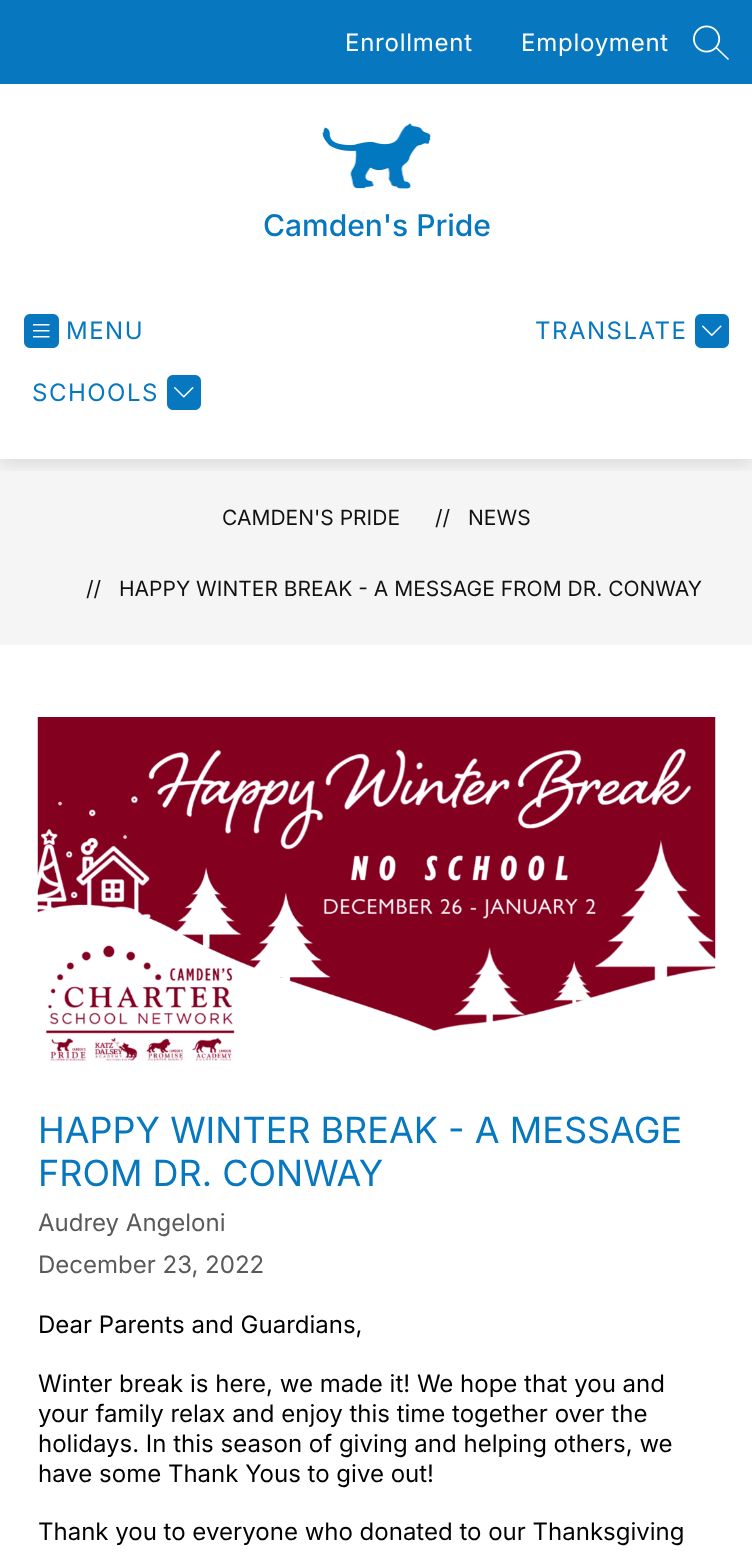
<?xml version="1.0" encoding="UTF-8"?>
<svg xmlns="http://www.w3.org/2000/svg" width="752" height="1552">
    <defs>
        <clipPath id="clip1"><rect x="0" y="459" width="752" height="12"/></clipPath>
        <filter id="blur1" x="-50%" y="-200%" width="200%" height="500%"><feGaussianBlur stdDeviation="7.5"/></filter>
    </defs>
    <rect width="100%" height="100%" fill="#FFFFFF"/>
    <rect x="0" y="459" width="752" height="186" fill="#F5F5F5"/>
    <g clip-path="url(#clip1)">
        <rect x="0" y="6" width="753" height="459" fill="#000000" fill-opacity="0.1" filter="url(#blur1)"/>
    </g>
    <rect x="0" y="0" width="752" height="84" fill="#0778C0"/>
    <text x="345" y="51" font-family="Inter" font-size="24" letter-spacing="0.75" fill="#FFFFFF">Enrollment</text>
    <text x="521" y="51" font-family="Inter" font-size="24" letter-spacing="0.75" fill="#FFFFFF">Employment</text>
    <image x="693" y="25" width="36" height="35" href="img_01.png"/>
    <image x="322" y="123" width="109" height="66" href="img_02.png"/>
    <text x="263" y="236" font-family="Inter" font-size="30" font-weight="500" fill="#0778C0">Camden's Pride</text>
    <image x="24" y="314" width="35" height="34" href="img_03.png"/>
    <text x="66" y="339" font-family="Inter" font-size="24" letter-spacing="1.5" fill="#0778C0">MENU</text>
    <text x="32" y="401" font-family="Inter" font-size="24" letter-spacing="1.5" fill="#0778C0">SCHOOLS</text>
    <image x="167" y="375" width="34" height="35" href="img_04.png"/>
    <text x="535" y="339" font-family="Inter" font-size="24" letter-spacing="1.5" fill="#0778C0">TRANSLATE</text>
    <image x="695" y="314" width="34" height="34" href="img_05.png"/>
    <text x="222" y="525" font-family="Inter" font-size="21" fill="#111111">CAMDEN'S PRIDE</text>
    <text x="435" y="525" font-family="Inter" font-size="21" fill="#111111">//</text>
    <text x="468" y="525" font-family="Inter" font-size="21" fill="#111111">NEWS</text>
    <text x="86" y="596" font-family="Inter" font-size="21" fill="#111111">//</text>
    <text x="119" y="596" font-family="Inter" font-size="21" fill="#111111">HAPPY WINTER BREAK - A MESSAGE FROM DR. CONWAY</text>
    <image x="37" y="717" width="679" height="344" href="img_06.png"/>
    <text font-family="Inter" font-size="36" fill="#0778C0">
        <tspan x="38" y="1143">HAPPY WINTER BREAK - A MESSAGE</tspan>
        <tspan x="38" y="1186">FROM DR. CONWAY</tspan>
    </text>
    <text font-family="Inter" font-size="24" fill="#595959">
        <tspan x="38" y="1231">Audrey Angeloni</tspan>
        <tspan x="38" y="1273">December 23, 2022</tspan>
    </text>
    <text x="38" y="1333" font-family="Inter" font-size="24" fill="#000000">Dear Parents and Guardians,</text>
    <text font-family="Inter" font-size="24" fill="#000000">
        <tspan x="38" y="1392">Winter break is here, we made it! We hope that you and</tspan>
        <tspan x="38" y="1422">your family relax and enjoy this time together over the</tspan>
        <tspan x="38" y="1452">holidays. In this season of giving and helping others, we</tspan>
        <tspan x="38" y="1482">have some Thank Yous to give out!</tspan>
    </text>
    <text x="38" y="1540" font-family="Inter" font-size="24" fill="#000000">Thank you to everyone who donated to our Thanksgiving</text>
</svg>
